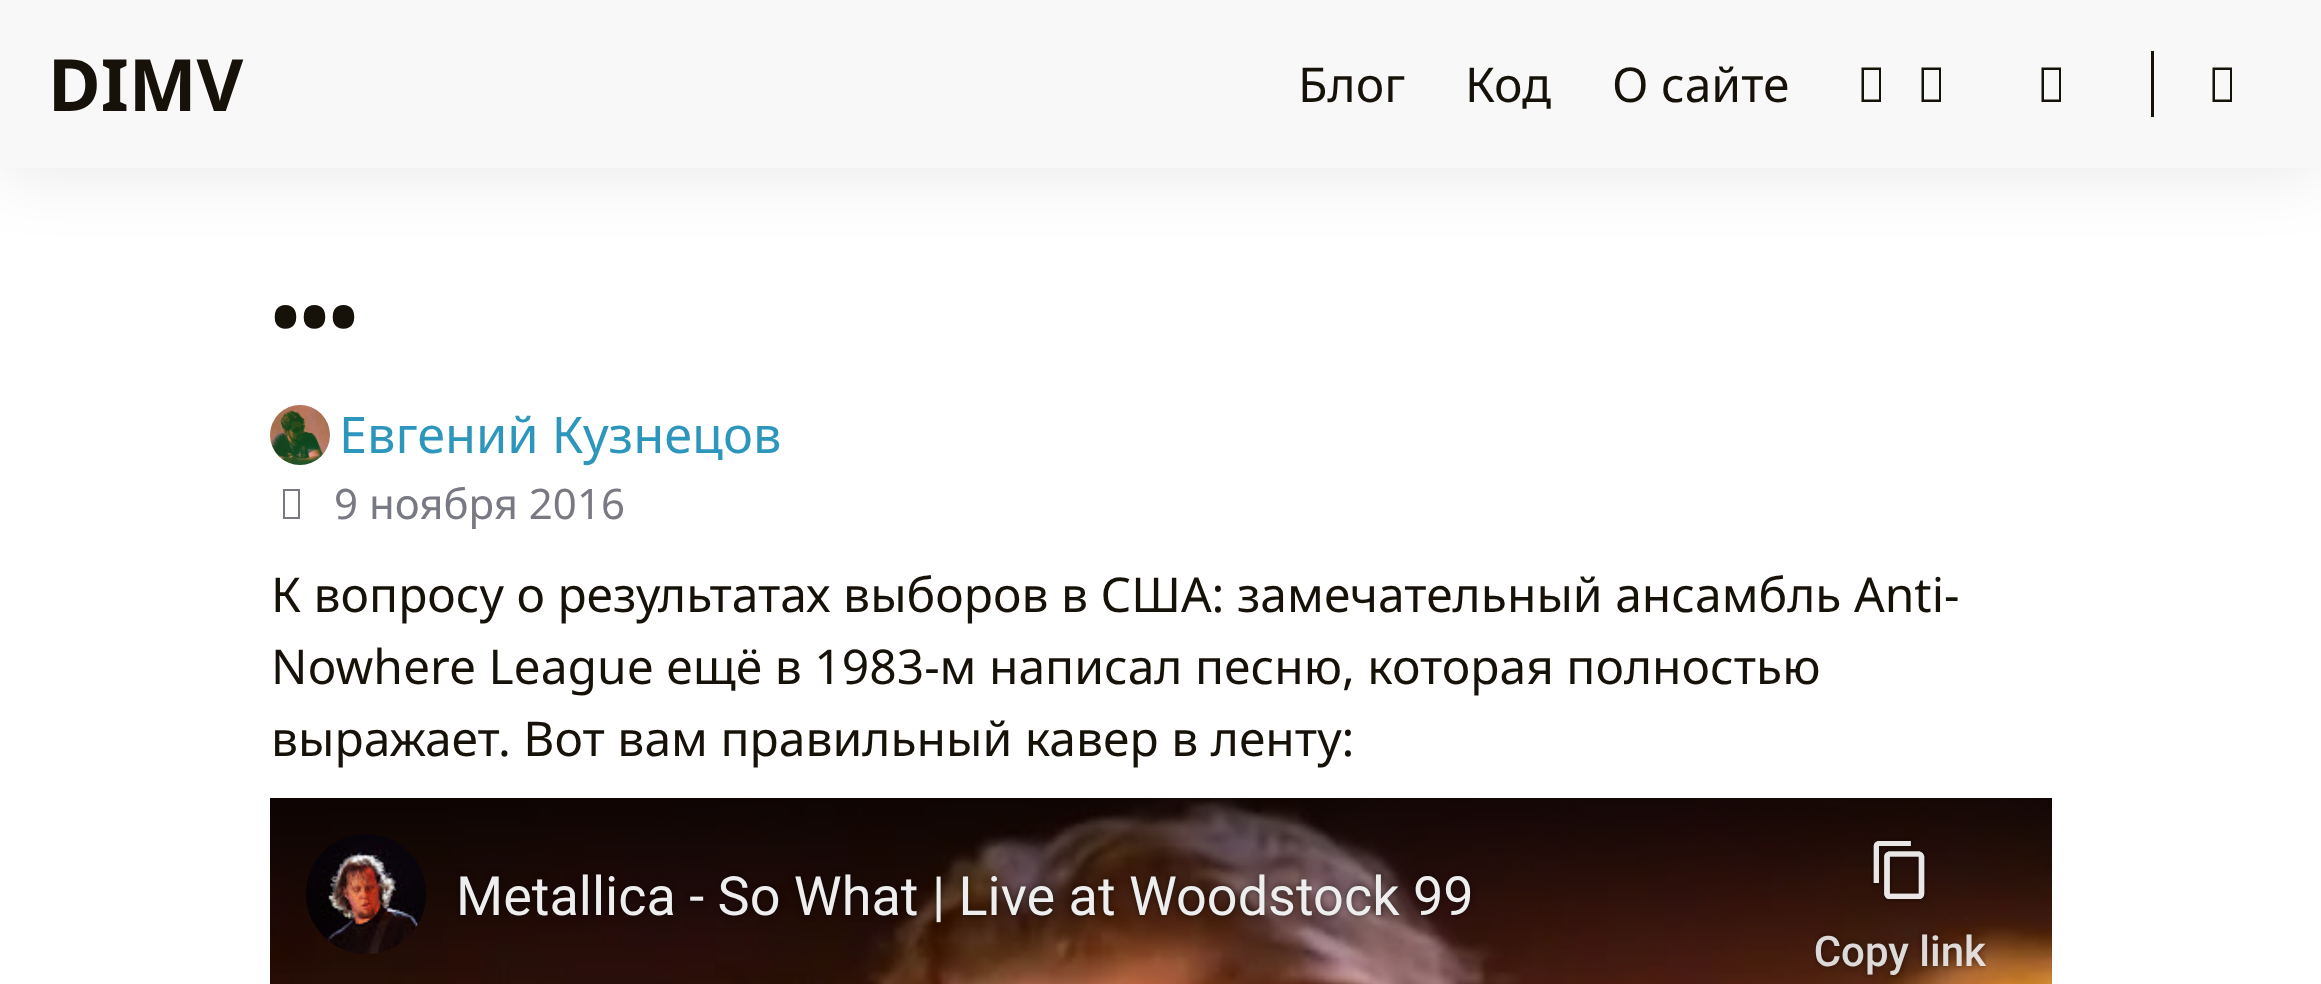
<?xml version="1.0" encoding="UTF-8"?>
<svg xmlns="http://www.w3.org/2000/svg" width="2321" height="984">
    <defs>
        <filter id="blur1" x="-50%" y="-200%" width="200%" height="500%"><feGaussianBlur stdDeviation="36"/></filter>
    </defs>
    <rect width="100%" height="100%" fill="#FFFFFF"/>
    <rect x="0" y="0" width="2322" height="168" fill="#000000" fill-opacity="0.1" filter="url(#blur1)"/>
    <rect x="0" y="0" width="2321" height="168" fill="#F8F8F8"/>
    <text x="48" y="111" font-family="Noto Sans" font-size="72" font-weight="700" fill="#161209">DIMV</text>
    <text x="1298" y="102" font-family="Noto Sans" font-size="48" fill="#161209">Блог</text>
    <text x="1465" y="102" font-family="Noto Sans" font-size="48" fill="#161209">Код</text>
    <text x="1612" y="102" font-family="Noto Sans" font-size="48" fill="#161209">О сайте</text>
    <path d="M 1861.5 102 V 67.5 H 1881 V 102 Z M 1864 99.5 H 1879 V 70 H 1864 Z" fill="#161209"/>
    <path d="M 1921.5 102 V 67.5 H 1941 V 102 Z M 1924 99.5 H 1939 V 70 H 1924 Z" fill="#161209"/>
    <path d="M 2041.5 102 V 67.5 H 2061 V 102 Z M 2044 99.5 H 2059 V 70 H 2044 Z" fill="#161209"/>
    <rect x="2151" y="51" width="3" height="66" fill="#161209"/>
    <path d="M 2212.5 102 V 67.5 H 2232 V 102 Z M 2215 99.5 H 2230 V 70 H 2215 Z" fill="#161209"/>
    <text x="271" y="345" font-family="Noto Sans" font-size="77" font-weight="700" fill="#161209">•••</text>
    <image x="270" y="405" width="60" height="60" href="img_01.png"/>
    <text x="339" y="453" font-family="Noto Sans" font-size="50.5" fill="#2D96BD">Евгений Кузнецов</text>
    <path d="M 283 519 V 489 H 300 V 519 Z M 285 517 H 298 V 491 H 285 Z" fill="#797983"/>
    <text x="334" y="519" font-family="Noto Sans" font-size="42" fill="#797983">9 ноября 2016</text>
    <text font-family="Noto Sans" font-size="48" fill="#161209">
        <tspan x="271" y="612">К вопросу о результатах выборов в США: замечательный ансамбль Anti-</tspan>
        <tspan x="271" y="684">Nowhere League ещё в 1983-м написал песню, которая полностью</tspan>
        <tspan x="271" y="756">выражает. Вот вам правильный кавер в ленту:</tspan>
    </text>
    <image x="270" y="798" width="1782" height="186" href="img_02.png"/>
</svg>
